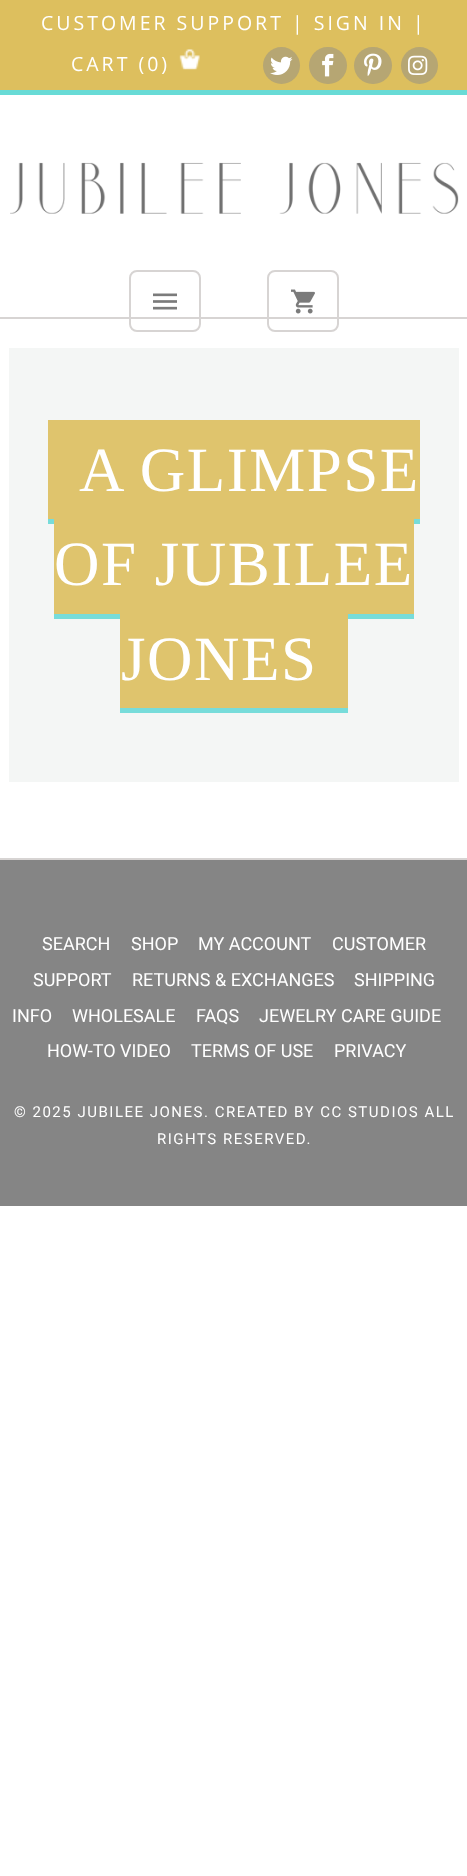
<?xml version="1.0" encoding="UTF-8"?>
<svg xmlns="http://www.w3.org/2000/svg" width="467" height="1876">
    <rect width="100%" height="100%" fill="#FFFFFF"/>
    <rect x="0" y="0" width="467" height="90" fill="#DDBF5E"/>
    <rect x="0" y="90" width="467" height="5" fill="#68DBD6"/>
    <text x="41" y="30" font-family="Open Sans" font-size="19.5" letter-spacing="3" fill="#FFFFFF">CUSTOMER SUPPORT | SIGN IN |</text>
    <text x="71" y="71" font-family="Open Sans" font-size="19.5" letter-spacing="3" fill="#FFFFFF">CART (0)</text>
    <image x="179" y="49" width="21" height="21" href="img_01.png"/>
    <circle cx="281.5" cy="65.5" r="18.5" fill="#B6A673"/>
    <image x="270" y="56" width="23" height="19" href="img_02.png"/>
    <rect x="309" y="47" width="38" height="37" rx="18.5" fill="#B6A673"/>
    <image x="322" y="53" width="12" height="24" href="img_03.png"/>
    <rect x="354" y="47" width="38" height="37" rx="18.5" fill="#B6A673"/>
    <image x="364" y="53" width="18" height="23" href="img_04.png"/>
    <circle cx="419.5" cy="65.5" r="18.5" fill="#B6A673"/>
    <image x="408" y="55" width="20" height="20" href="img_05.png"/>
    <rect x="0" y="317" width="467" height="2" fill="#D7D4D3"/>
    <image x="10" y="162" width="449" height="52" href="img_06.png"/>
    <rect x="130" y="271" width="70" height="60" rx="7" fill="none" stroke="#D7D4D3" stroke-width="2"/>
    <image x="153" y="293" width="24" height="17" href="img_07.png"/>
    <rect x="268" y="271" width="70" height="60" rx="7" fill="none" stroke="#D7D4D3" stroke-width="2"/>
    <image x="291" y="289" width="24" height="25" href="img_08.png"/>
    <rect x="9" y="348" width="450" height="434" fill="#F4F6F5"/>
    <rect x="48" y="420" width="372" height="99" fill="#DFC46D"/>
    <text x="79" y="491" font-family="Liberation Serif" font-size="63" letter-spacing="1.5" fill="#FFFFFF">A GLIMPSE</text>
    <rect x="48" y="519" width="372" height="5" fill="#77DCDA"/>
    <rect x="54" y="519" width="360" height="95" fill="#DFC46D"/>
    <text x="54" y="585" font-family="Liberation Serif" font-size="63" letter-spacing="1.5" fill="#FFFFFF">OF JUBILEE</text>
    <rect x="54" y="614" width="360" height="5" fill="#77DCDA"/>
    <rect x="120" y="614" width="228" height="94" fill="#DFC46D"/>
    <text x="121" y="680" font-family="Liberation Serif" font-size="63" letter-spacing="1.5" fill="#FFFFFF">JONES</text>
    <rect x="120" y="708" width="228" height="5" fill="#77DCDA"/>
    <rect x="0" y="860" width="467" height="346" fill="#858585"/>
    <rect x="0" y="858" width="467" height="2" fill="#D7D4D3"/>
    <text x="42" y="950" font-family="Roboto" font-size="18" fill="#FFFFFF">SEARCH</text>
    <text x="131" y="950" font-family="Roboto" font-size="18" fill="#FFFFFF">SHOP</text>
    <text x="198" y="950" font-family="Roboto" font-size="18" fill="#FFFFFF">MY ACCOUNT</text>
    <text x="332" y="950" font-family="Roboto" font-size="18" fill="#FFFFFF">CUSTOMER</text>
    <text x="33" y="986" font-family="Roboto" font-size="18" fill="#FFFFFF">SUPPORT</text>
    <text x="132" y="986" font-family="Roboto" font-size="18" fill="#FFFFFF">RETURNS &amp; EXCHANGES</text>
    <text x="354" y="986" font-family="Roboto" font-size="18" fill="#FFFFFF">SHIPPING</text>
    <text x="12" y="1022" font-family="Roboto" font-size="18" fill="#FFFFFF">INFO</text>
    <text x="72" y="1022" font-family="Roboto" font-size="18" fill="#FFFFFF">WHOLESALE</text>
    <text x="196" y="1022" font-family="Roboto" font-size="18" fill="#FFFFFF">FAQS</text>
    <text x="259" y="1022" font-family="Roboto" font-size="18" fill="#FFFFFF">JEWELRY CARE GUIDE</text>
    <text x="47" y="1057" font-family="Roboto" font-size="18" fill="#FFFFFF">HOW-TO VIDEO</text>
    <text x="191" y="1057" font-family="Roboto" font-size="18" fill="#FFFFFF">TERMS OF USE</text>
    <text x="334" y="1057" font-family="Roboto" font-size="18" fill="#FFFFFF">PRIVACY</text>
    <text x="14" y="1117" font-family="Roboto" font-size="15" letter-spacing="1.5" fill="#FFFFFF">© 2025 JUBILEE JONES. CREATED BY CC STUDIOS ALL</text>
    <text x="157" y="1144" font-family="Roboto" font-size="15" letter-spacing="1.5" fill="#FFFFFF">RIGHTS RESERVED.</text>
</svg>
